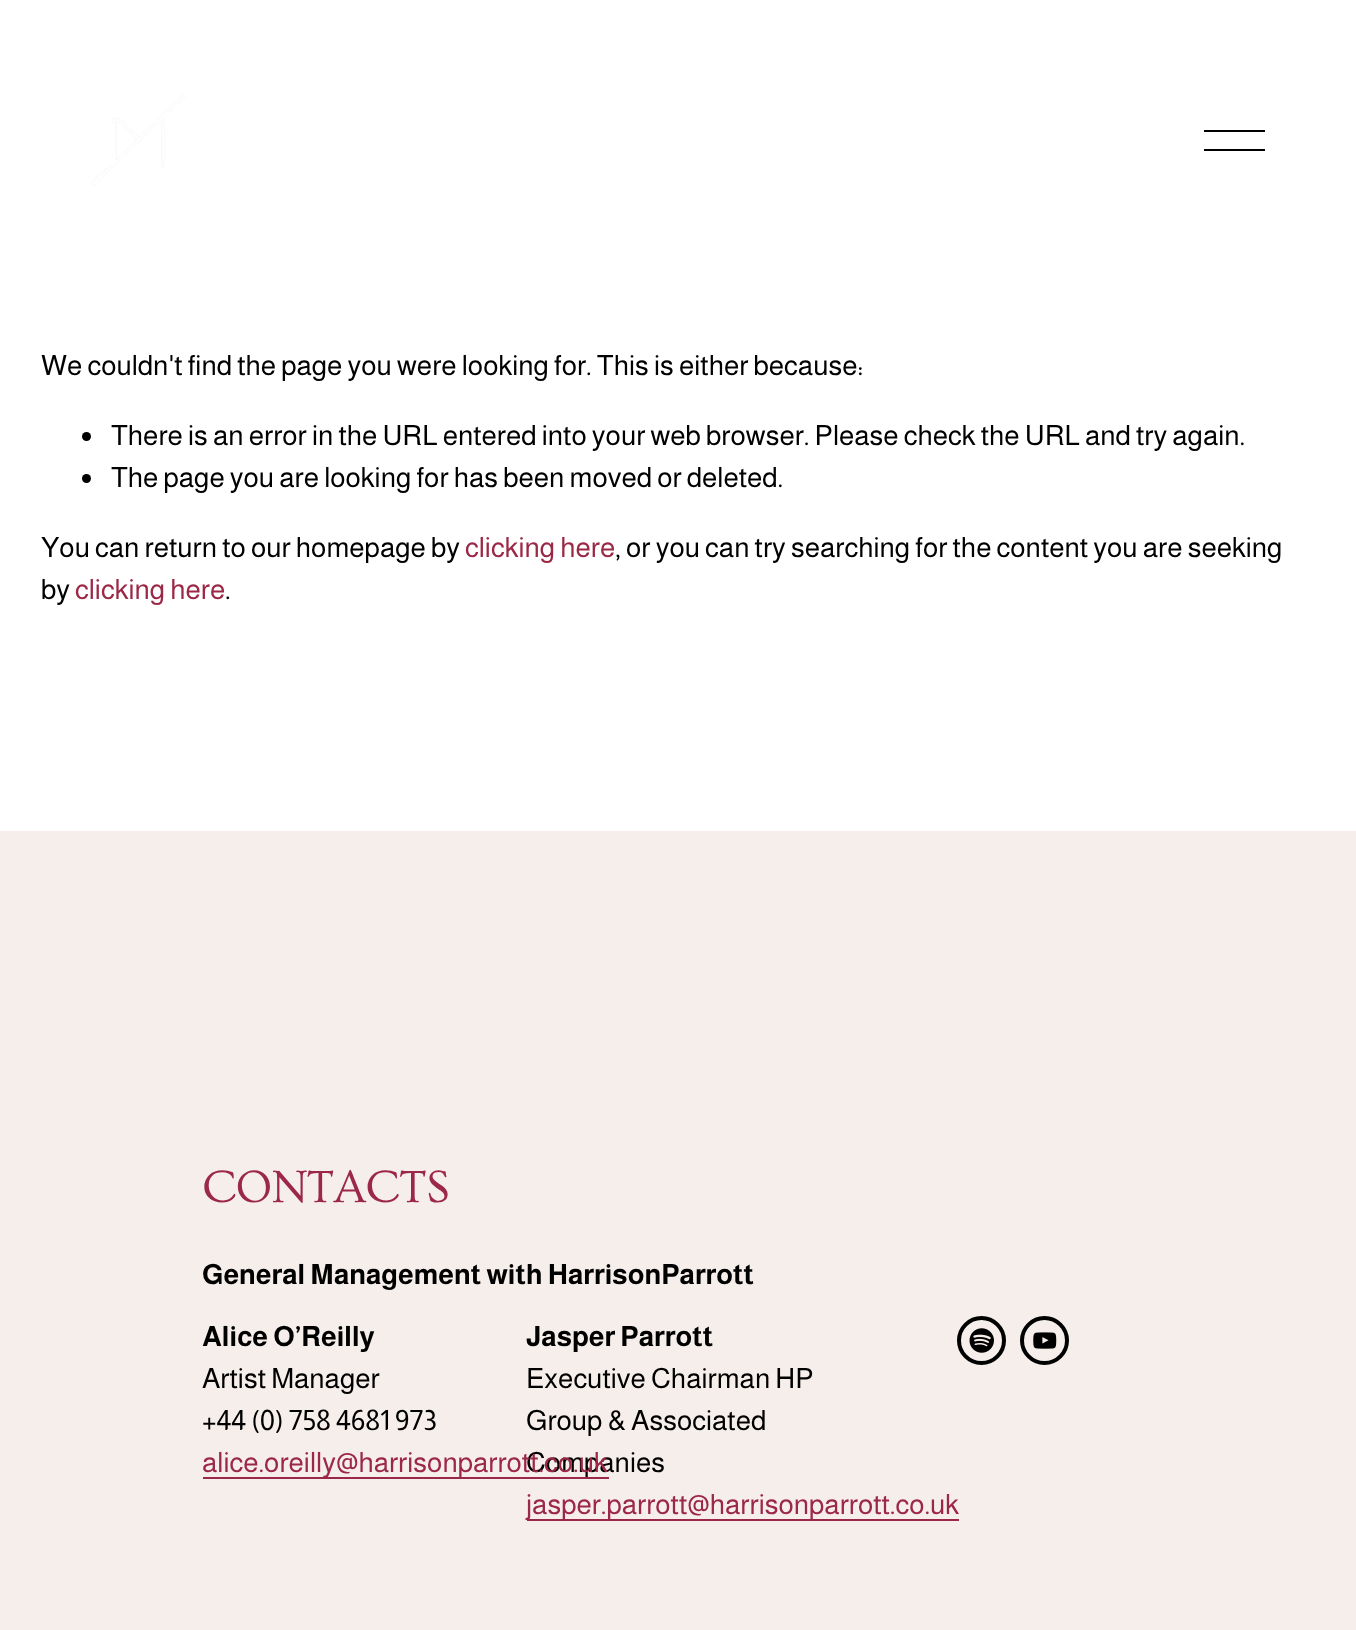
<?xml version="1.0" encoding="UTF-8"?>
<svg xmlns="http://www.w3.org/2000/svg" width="1356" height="1630">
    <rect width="100%" height="100%" fill="#FFFFFF"/>
    <image x="91" y="94" width="95" height="92" href="img_01.png"/>
    <rect x="1204" y="130" width="61" height="2" fill="#000000"/>
    <rect x="1204" y="149" width="61" height="2" fill="#000000"/>
    <text x="41" y="375" font-family="Almarai" font-size="28" fill="#000000">We couldn't find the page you were looking for. This is either because:</text>
    <circle cx="86.5" cy="436.5" r="4.5" fill="#000000"/>
    <text x="111" y="445" font-family="Almarai" font-size="28" fill="#000000">There is an error in the URL entered into your web browser. Please check the URL and try again.</text>
    <circle cx="86.5" cy="478.5" r="4.5" fill="#000000"/>
    <text x="111" y="487" font-family="Almarai" font-size="28" fill="#000000">The page you are looking for has been moved or deleted.</text>
    <text x="41" y="557" font-family="Almarai" font-size="28" fill="#000000">You can return to our homepage by</text>
    <text x="465" y="557" font-family="Almarai" font-size="28" fill="#9C2847">clicking here</text>
    <text x="615" y="557" font-family="Almarai" font-size="28" fill="#000000">, or you can try searching for the content you are seeking</text>
    <text x="41" y="599" font-family="Almarai" font-size="28" fill="#000000">by</text>
    <text x="75" y="599" font-family="Almarai" font-size="28" fill="#9C2847">clicking here</text>
    <text x="225" y="599" font-family="Almarai" font-size="28" fill="#000000">.</text>
    <rect x="0" y="831" width="1356" height="799" fill="#F6EEEA"/>
    <text x="202" y="1202" font-family="Ovo" font-size="47.5" letter-spacing="-1" fill="#9C2847">CONTACTS</text>
    <text x="202" y="1284" font-family="Almarai" font-size="28" font-weight="700" fill="#000000">General Management with HarrisonParrott</text>
    <text x="202" y="1346" font-family="Almarai" font-size="28" font-weight="700" fill="#000000">Alice O’Reilly</text>
    <text font-family="Almarai" font-size="28" fill="#000000">
        <tspan x="202" y="1388">Artist Manager</tspan>
        <tspan x="202" y="1430">+44 (0) 758 4681 973</tspan>
    </text>
    <text x="526" y="1472" font-family="Almarai" font-size="28" fill="#000000">Companies</text>
    <rect x="203" y="1477" width="406" height="2" fill="#9C2847"/>
    <text x="202" y="1472" font-family="Almarai" font-size="28" fill="#9C2847">alice.oreilly@harrisonparrott.co.uk</text>
    <text x="526" y="1346" font-family="Almarai" font-size="28" font-weight="700" fill="#000000">Jasper Parrott</text>
    <text font-family="Almarai" font-size="28" fill="#000000">
        <tspan x="526" y="1388">Executive Chairman HP</tspan>
        <tspan x="526" y="1430">Group &amp; Associated</tspan>
    </text>
    <rect x="527" y="1519" width="432" height="2" fill="#9C2847"/>
    <text x="526" y="1514" font-family="Almarai" font-size="28" fill="#9C2847">jasper.parrott@harrisonparrott.co.uk</text>
    <circle cx="981.5" cy="1340.5" r="22.5" fill="none" stroke="#000000" stroke-width="4"/>
    <image x="969" y="1328" width="25" height="25" href="img_02.png"/>
    <circle cx="1044.5" cy="1340.5" r="22.5" fill="none" stroke="#000000" stroke-width="4"/>
    <image x="1033" y="1332" width="24" height="17" href="img_03.png"/>
</svg>
